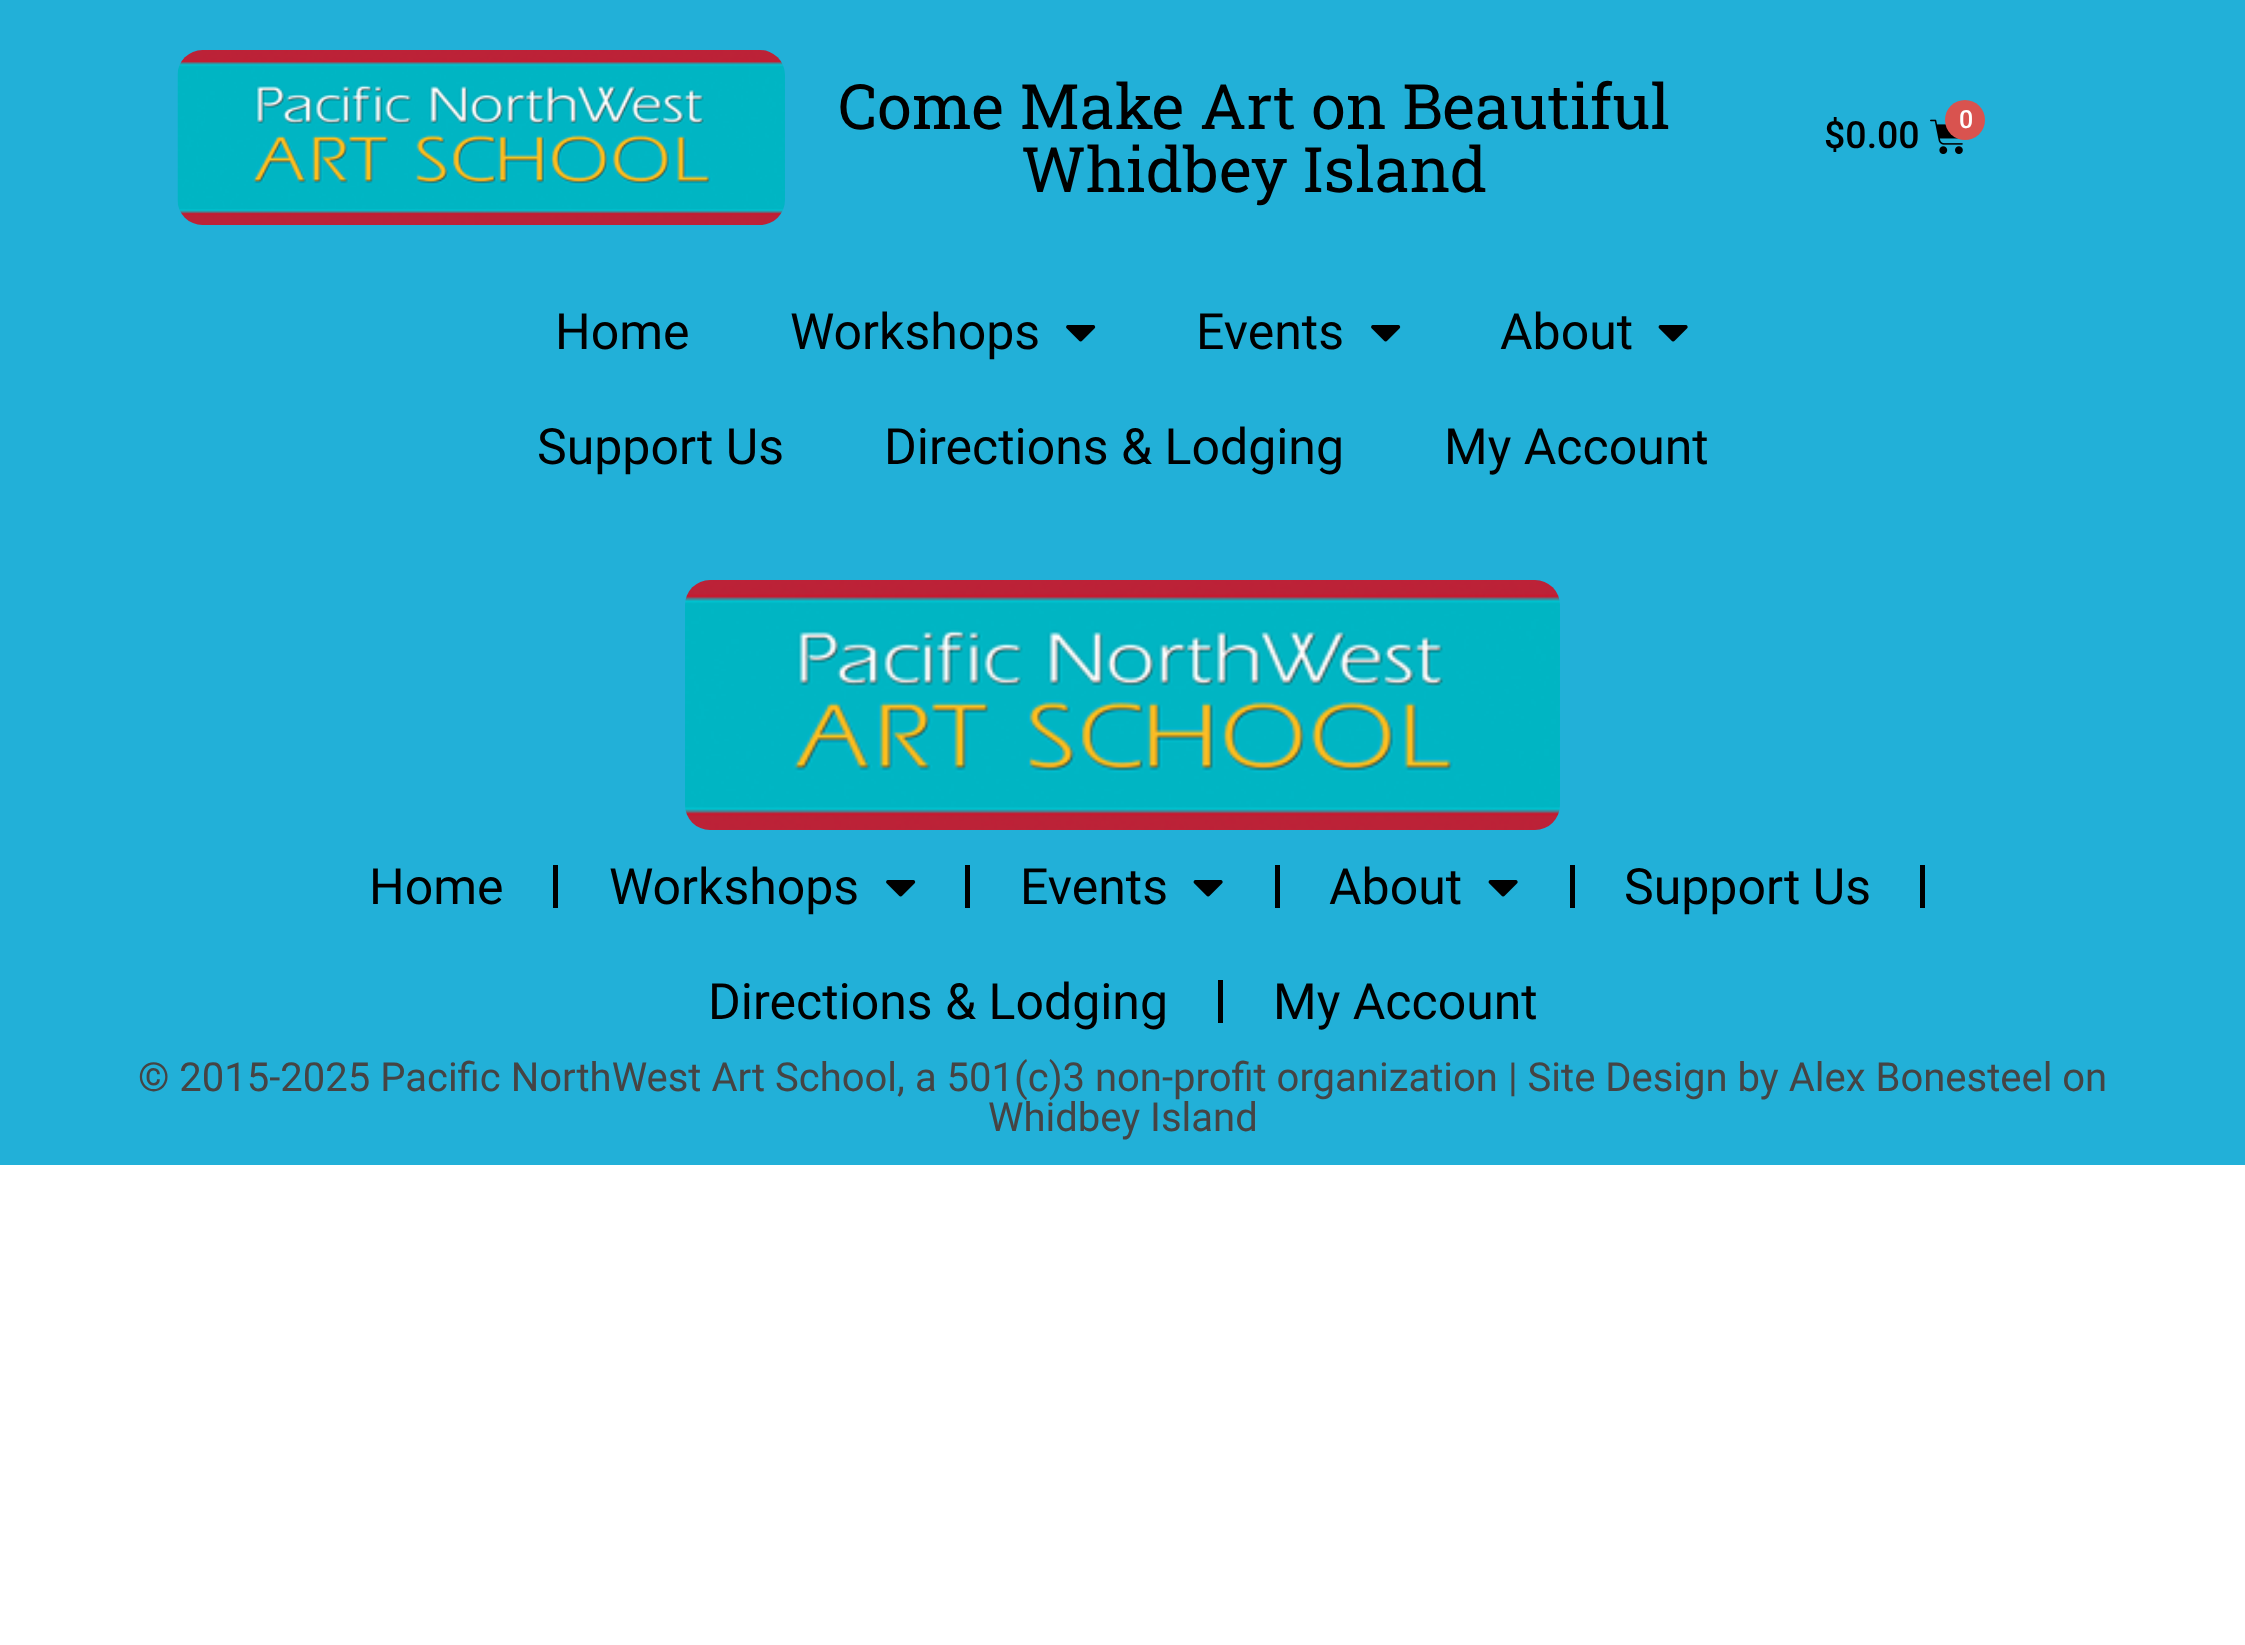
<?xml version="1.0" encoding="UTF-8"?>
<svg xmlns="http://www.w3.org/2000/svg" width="2245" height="1645">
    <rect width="100%" height="100%" fill="#FFFFFF"/>
    <rect x="0" y="0" width="2245" height="1165" fill="#22B0D8"/>
    <image x="177" y="50" width="608" height="175" href="img_01.png"/>
    <text x="838" y="129" font-family="Roboto Slab" font-size="62.5" fill="#000000">Come Make Art on Beautiful</text>
    <text x="1021" y="192" font-family="Roboto Slab" font-size="62.5" fill="#000000">Whidbey Island</text>
    <text x="1824" y="148" font-family="Roboto" font-size="37.5" font-weight="500" fill="#000000">$0.00</text>
    <image x="1930" y="119" width="33" height="35" href="img_02.png"/>
    <circle cx="1965" cy="120" r="20" fill="#D9534F"/>
    <text x="1959" y="128" font-family="Roboto" font-size="25" font-weight="500" fill="#FFFFFF">0</text>
    <text x="555" y="349" font-family="Roboto" font-size="50" fill="#000000">Home</text>
    <text x="790" y="349" font-family="Roboto" font-size="50" fill="#000000">Workshops</text>
    <image x="1066" y="325" width="30" height="17" href="img_03.png"/>
    <text x="1196" y="349" font-family="Roboto" font-size="50" fill="#000000">Events</text>
    <image x="1371" y="325" width="30" height="17" href="img_03.png"/>
    <text x="1500" y="349" font-family="Roboto" font-size="50" fill="#000000">About</text>
    <image x="1658" y="325" width="30" height="17" href="img_04.png"/>
    <text x="537" y="464" font-family="Roboto" font-size="50" fill="#000000">Support Us</text>
    <text x="884" y="464" font-family="Roboto" font-size="50" fill="#000000">Directions &amp; Lodging</text>
    <text x="1444" y="464" font-family="Roboto" font-size="50" fill="#000000">My Account</text>
    <image x="685" y="580" width="875" height="250" href="img_05.png"/>
    <text x="369" y="904" font-family="Roboto" font-size="50" fill="#000000">Home</text>
    <rect x="553" y="865" width="5" height="43" fill="#000000"/>
    <text x="609" y="904" font-family="Roboto" font-size="50" fill="#000000">Workshops</text>
    <image x="886" y="880" width="30" height="17" href="img_03.png"/>
    <rect x="965" y="865" width="5" height="43" fill="#000000"/>
    <text x="1020" y="904" font-family="Roboto" font-size="50" fill="#000000">Events</text>
    <image x="1193" y="880" width="30" height="17" href="img_04.png"/>
    <rect x="1275" y="865" width="5" height="43" fill="#000000"/>
    <text x="1329" y="904" font-family="Roboto" font-size="50" fill="#000000">About</text>
    <image x="1488" y="880" width="30" height="17" href="img_04.png"/>
    <rect x="1570" y="865" width="5" height="43" fill="#000000"/>
    <text x="1624" y="904" font-family="Roboto" font-size="50" fill="#000000">Support Us</text>
    <rect x="1920" y="865" width="5" height="43" fill="#000000"/>
    <text x="708" y="1019" font-family="Roboto" font-size="50" fill="#000000">Directions &amp; Lodging</text>
    <rect x="1218" y="980" width="5" height="43" fill="#000000"/>
    <text x="1273" y="1019" font-family="Roboto" font-size="50" fill="#000000">My Account</text>
    <text x="138" y="1091" font-family="Roboto" font-size="40" fill="#454444">© 2015-2025 Pacific NorthWest Art School, a 501(c)3 non-profit organization | Site Design by Alex Bonesteel on</text>
    <text x="988" y="1131" font-family="Roboto" font-size="40" fill="#454444">Whidbey Island</text>
</svg>
